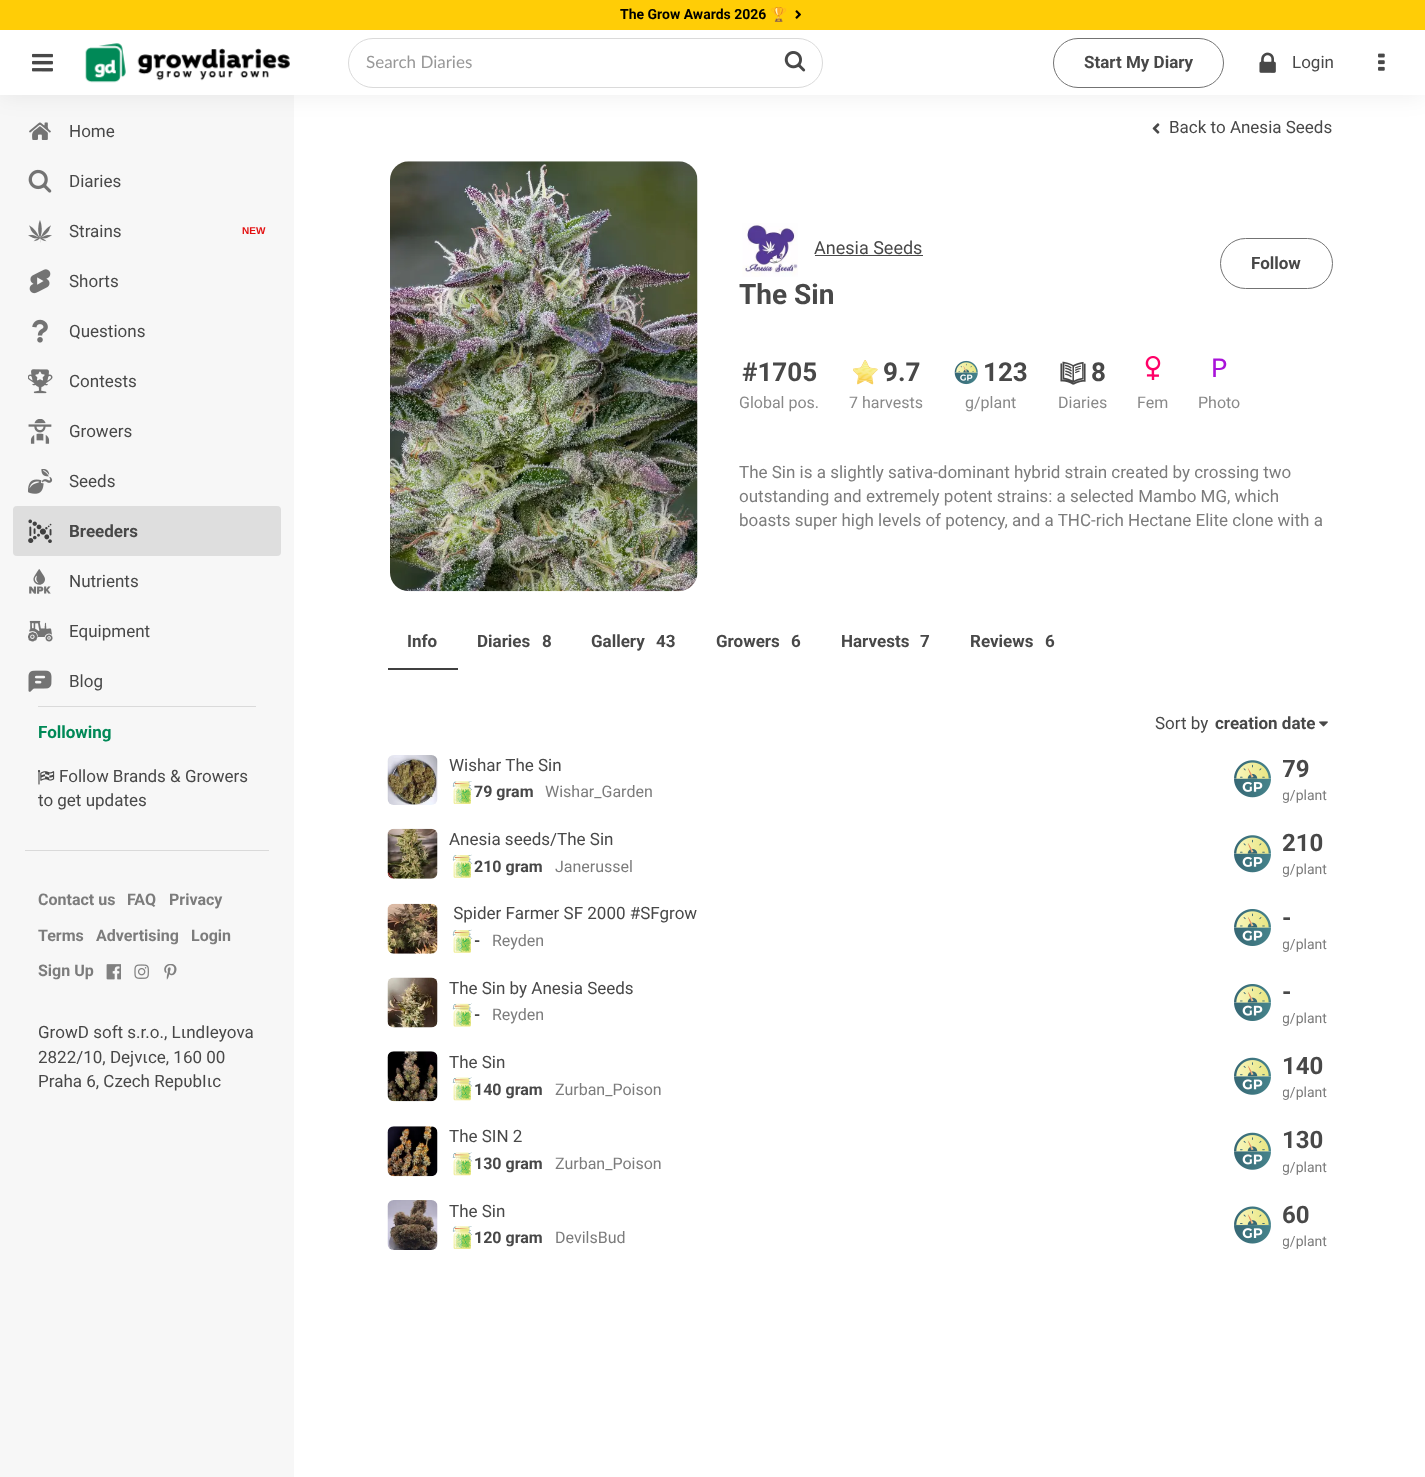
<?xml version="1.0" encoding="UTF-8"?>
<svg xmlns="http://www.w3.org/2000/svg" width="1425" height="1477">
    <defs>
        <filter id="blur1" x="-50%" y="-200%" width="200%" height="500%"><feGaussianBlur stdDeviation="12.5"/></filter>
        <clipPath id="clip1"><rect x="1283" y="753" width="50" height="33"/></clipPath>
        <clipPath id="clip2"><rect x="1283" y="786" width="50" height="20"/></clipPath>
        <clipPath id="clip3"><rect x="1283" y="861" width="50" height="20"/></clipPath>
        <clipPath id="clip4"><rect x="1283" y="935" width="50" height="20"/></clipPath>
        <clipPath id="clip5"><rect x="1283" y="1009" width="50" height="20"/></clipPath>
        <clipPath id="clip6"><rect x="1283" y="1084" width="50" height="20"/></clipPath>
        <clipPath id="clip7"><rect x="1283" y="1158" width="50" height="20"/></clipPath>
        <clipPath id="clip8"><rect x="1283" y="1233" width="50" height="20"/></clipPath>
    </defs>
    <rect width="100%" height="100%" fill="#FFFFFF"/>
    <rect x="0" y="95" width="294" height="1382" fill="#F7F7F7"/>
    <image x="29" y="122" width="22" height="18" href="img_07.png"/>
    <image x="1152" y="123" width="8" height="11" href="img_23.png"/>
    <rect x="0" y="30" width="1425" height="65" fill="#000000" fill-opacity="0.07" filter="url(#blur1)"/>
    <rect x="0" y="0" width="1425" height="30" fill="#FFCD06"/>
    <text x="620" y="19" font-family="Roboto" font-size="14" font-weight="700" fill="#000000">The Grow Awards 2026</text>
    <text x="770" y="19" font-family="Noto Color Emoji" font-size="14" font-weight="700" fill="#000000">🏆</text>
    <image x="795" y="10" width="6" height="9" href="img_01.png"/>
    <rect x="0" y="30" width="1425" height="65" fill="#FFFFFF"/>
    <image x="32" y="53" width="21" height="19" href="img_02.png"/>
    <image x="85" y="43" width="205" height="40" href="img_03.png"/>
    <rect x="348.5" y="38.5" width="474" height="49" rx="24.5" fill="none" stroke="#DADADA"/>
    <text x="366" y="68" font-family="Lato" font-size="17" fill="#989898">Search Diaries</text>
    <image x="784" y="51" width="22" height="21" href="img_04.png"/>
    <rect x="1053.5" y="38.5" width="170" height="49" rx="24.5" fill="none" stroke="#737373"/>
    <text x="1084" y="68" font-family="Roboto" font-size="17" font-weight="700" fill="#484848">Start My Diary</text>
    <image x="1259" y="52" width="17" height="21" href="img_05.png"/>
    <text x="1292" y="68" font-family="Roboto" font-size="17" fill="#484848">Login</text>
    <image x="1378" y="53" width="7" height="18" href="img_06.png"/>
    <text x="69" y="137" font-family="Roboto" font-size="17" fill="#484848">Home</text>
    <image x="28" y="169" width="24" height="24" href="img_08.png"/>
    <text x="69" y="187" font-family="Roboto" font-size="17" fill="#484848">Diaries</text>
    <image x="28" y="220" width="24" height="23" href="img_09.png"/>
    <text x="69" y="237" font-family="Roboto" font-size="17" fill="#484848">Strains</text>
    <text x="242" y="234" font-family="Liberation Sans" font-size="10" font-weight="700" fill="#E31111">NEW</text>
    <image x="29" y="269" width="22" height="25" href="img_10.png"/>
    <text x="69" y="287" font-family="Roboto" font-size="17" fill="#484848">Shorts</text>
    <image x="32" y="319" width="16" height="24" href="img_11.png"/>
    <text x="69" y="337" font-family="Roboto" font-size="17" fill="#484848">Questions</text>
    <image x="28" y="369" width="25" height="25" href="img_12.png"/>
    <text x="69" y="387" font-family="Roboto" font-size="17" fill="#484848">Contests</text>
    <image x="28" y="419" width="24" height="25" href="img_13.png"/>
    <text x="69" y="437" font-family="Roboto" font-size="17" fill="#484848">Growers</text>
    <image x="28" y="469" width="25" height="25" href="img_14.png"/>
    <text x="69" y="487" font-family="Roboto" font-size="17" fill="#484848">Seeds</text>
    <rect x="13" y="506" width="268" height="50" rx="4" fill="#DEDEDE"/>
    <image x="28" y="519" width="24" height="24" href="img_15.png"/>
    <text x="69" y="537" font-family="Roboto" font-size="17" font-weight="700" fill="#484848">Breeders</text>
    <image x="29" y="569" width="22" height="25" href="img_16.png"/>
    <text x="69" y="587" font-family="Roboto" font-size="17" fill="#484848">Nutrients</text>
    <image x="28" y="620" width="25" height="22" href="img_17.png"/>
    <text x="69" y="637" font-family="Roboto" font-size="17" fill="#484848">Equipment</text>
    <image x="28" y="670" width="24" height="22" href="img_18.png"/>
    <text x="69" y="687" font-family="Roboto" font-size="17" fill="#484848">Blog</text>
    <rect x="38" y="706" width="218" height="1" fill="#DADADA"/>
    <text x="38" y="738" font-family="Roboto" font-size="17" font-weight="700" fill="#008957">Following</text>
    <image x="38" y="770" width="17" height="15" href="img_19.png"/>
    <text x="59" y="782" font-family="Roboto" font-size="17" fill="#484848">Follow Brands &amp; Growers</text>
    <text x="38" y="806" font-family="Roboto" font-size="17" fill="#484848">to get updates</text>
    <rect x="25" y="850" width="244" height="1" fill="#DADADA"/>
    <text x="38" y="905" font-family="Roboto" font-size="16" font-weight="700" fill="#7C7C7C">Contact us</text>
    <text x="127" y="905" font-family="Roboto" font-size="16" font-weight="700" fill="#7C7C7C">FAQ</text>
    <text x="169" y="905" font-family="Roboto" font-size="16" font-weight="700" fill="#7C7C7C">Privacy</text>
    <text x="38" y="941" font-family="Roboto" font-size="16" font-weight="700" fill="#7C7C7C">Terms</text>
    <text x="96" y="941" font-family="Roboto" font-size="16" font-weight="700" fill="#7C7C7C">Advertising</text>
    <text x="191" y="941" font-family="Roboto" font-size="16" font-weight="700" fill="#7C7C7C">Login</text>
    <text x="38" y="976" font-family="Roboto" font-size="16" font-weight="700" fill="#7C7C7C">Sign Up</text>
    <image x="106" y="964" width="15" height="16" href="img_20.png"/>
    <image x="134" y="964" width="15" height="15" href="img_21.png"/>
    <image x="164" y="964" width="13" height="16" href="img_22.png"/>
    <text font-family="Roboto" font-size="17" fill="#484848">
        <tspan x="38" y="1038">GrοwD sοft s.r.ο., LιndΙeyοva</tspan>
        <tspan x="38" y="1063">2822/10, Dejvιce, 160 00</tspan>
        <tspan x="38" y="1087">Praha 6, Czech RepυbΙιc</tspan>
    </text>
    <text x="1169" y="133" font-family="Roboto" font-size="17" fill="#484848">Back to Anesia Seeds</text>
    <image x="390" y="161" width="308" height="431" href="img_24.png"/>
    <image x="742" y="223" width="56" height="54" href="img_25.png"/>
    <text x="814" y="254" font-family="Roboto" font-size="18" fill="#484848">Anesia Seeds</text>
    <rect x="815" y="255" width="108" height="1" fill="#484848"/>
    <text x="739" y="304" font-family="Roboto" font-size="28" font-weight="700" fill="#484848">The Sin</text>
    <rect x="1220.5" y="238.5" width="112" height="50" rx="25" fill="none" stroke="#737373"/>
    <text x="1251" y="269" font-family="Roboto" font-size="17" font-weight="700" fill="#484848">Follow</text>
    <text x="742" y="381" font-family="Roboto" font-size="26" font-weight="700" fill="#484848">#1705</text>
    <text x="739" y="408" font-family="Roboto" font-size="16" fill="#898989">Global pos.</text>
    <image x="853" y="360" width="25" height="25" href="img_26.png"/>
    <text x="883" y="381" font-family="Roboto" font-size="26" font-weight="700" fill="#484848">9.7</text>
    <text x="849" y="408" font-family="Roboto" font-size="16" fill="#898989">7 harvests</text>
    <image x="954" y="360" width="24" height="25" href="img_27.png"/>
    <text x="983" y="381" font-family="Roboto" font-size="26" font-weight="700" fill="#484848">123</text>
    <text x="965" y="408" font-family="Roboto" font-size="16" fill="#898989">g/plant</text>
    <image x="1060" y="361" width="26" height="24" href="img_28.png"/>
    <text x="1091" y="381" font-family="Roboto" font-size="26" font-weight="700" fill="#484848">8</text>
    <text x="1058" y="408" font-family="Roboto" font-size="16" fill="#898989">Diaries</text>
    <image x="1145" y="356" width="16" height="24" href="img_29.png"/>
    <text x="1137" y="408" font-family="Roboto" font-size="16" fill="#898989">Fem</text>
    <text x="1211" y="377" font-family="Liberation Mono" font-size="28" fill="#A913D9">P</text>
    <text x="1198" y="408" font-family="Roboto" font-size="16" fill="#898989">Photo</text>
    <text font-family="Roboto" font-size="17" fill="#7C7C7C">
        <tspan x="739" y="478">The Sin is a slightly sativa-dominant hybrid strain created by crossing two</tspan>
        <tspan x="739" y="502">outstanding and extremely potent strains: a selected Mambo MG, which</tspan>
        <tspan x="739" y="526">boasts super high levels of potency, and a THC-rich Hectane Elite clone with a</tspan>
    </text>
    <rect x="388" y="668" width="70" height="2" fill="#404040"/>
    <text x="407" y="647" font-family="Roboto" font-size="17" font-weight="700" fill="#484848">Info</text>
    <text x="477" y="647" font-family="Roboto" font-size="17" font-weight="700" fill="#484848">Diaries</text>
    <text x="542" y="647" font-family="Roboto" font-size="17" font-weight="700" fill="#484848">8</text>
    <text x="591" y="647" font-family="Roboto" font-size="17" font-weight="700" fill="#484848">Gallery</text>
    <text x="656" y="647" font-family="Roboto" font-size="17" font-weight="700" fill="#484848">43</text>
    <text x="716" y="647" font-family="Roboto" font-size="17" font-weight="700" fill="#484848">Growers</text>
    <text x="791" y="647" font-family="Roboto" font-size="17" font-weight="700" fill="#484848">6</text>
    <text x="841" y="647" font-family="Roboto" font-size="17" font-weight="700" fill="#484848">Harvests</text>
    <text x="920" y="647" font-family="Roboto" font-size="17" font-weight="700" fill="#484848">7</text>
    <text x="970" y="647" font-family="Roboto" font-size="17" font-weight="700" fill="#484848">Reviews</text>
    <text x="1045" y="647" font-family="Roboto" font-size="17" font-weight="700" fill="#484848">6</text>
    <text x="1155" y="729" font-family="Roboto" font-size="17" fill="#484848">Sort by</text>
    <text x="1215" y="729" font-family="Roboto" font-size="17" font-weight="700" fill="#484848">creation date</text>
    <image x="1319" y="721" width="9" height="6" href="img_30.png"/>
    <image x="387" y="755" width="51" height="50" href="img_31.png"/>
    <text x="449" y="771" font-family="Roboto" font-size="17" fill="#484848">Wishar The Sin</text>
    <image x="1234" y="760" width="37" height="38" href="img_32.png"/>
    <g clip-path="url(#clip1)">
        <text x="1282" y="777" font-family="Roboto" font-size="24" font-weight="700" fill="#484848">79</text>
    </g>
    <g clip-path="url(#clip2)">
        <text x="1282" y="800" font-family="Roboto" font-size="14" fill="#7C7C7C">g/plant</text>
    </g>
    <image x="452" y="781" width="20" height="23" href="img_33.png"/>
    <text x="474" y="797" font-family="Roboto" font-size="16" font-weight="700" fill="#484848">79 gram</text>
    <text x="545" y="797" font-family="Roboto" font-size="16" fill="#7C7C7C">Wishar_Garden</text>
    <image x="387" y="828" width="51" height="51" href="img_34.png"/>
    <text x="449" y="845" font-family="Roboto" font-size="17" fill="#484848">Anesia seeds/The Sin</text>
    <image x="1234" y="835" width="37" height="38" href="img_32.png"/>
    <text x="1282" y="851" font-family="Roboto" font-size="24" font-weight="700" fill="#484848">210</text>
    <g clip-path="url(#clip3)">
        <text x="1282" y="874" font-family="Roboto" font-size="14" fill="#7C7C7C">g/plant</text>
    </g>
    <image x="452" y="854" width="21" height="24" href="img_35.png"/>
    <text x="474" y="872" font-family="Roboto" font-size="16" font-weight="700" fill="#484848">210 gram</text>
    <text x="555" y="872" font-family="Roboto" font-size="16" fill="#7C7C7C">Janerussel</text>
    <image x="387" y="903" width="51" height="51" href="img_36.png"/>
    <text x="449" y="919" font-family="Roboto" font-size="17" fill="#484848">️ Spider Farmer SF 2000 #SFgrow</text>
    <image x="452" y="929" width="21" height="24" href="img_37.png"/>
    <text x="474" y="946" font-family="Roboto" font-size="16" font-weight="700" fill="#484848">-</text>
    <text x="492" y="946" font-family="Roboto" font-size="16" fill="#7C7C7C">Reyden</text>
    <image x="1234" y="909" width="37" height="37" href="img_38.png"/>
    <text x="1282" y="926" font-family="Roboto" font-size="24" font-weight="700" fill="#484848">-</text>
    <g clip-path="url(#clip4)">
        <text x="1282" y="949" font-family="Roboto" font-size="14" fill="#7C7C7C">g/plant</text>
    </g>
    <image x="387" y="977" width="51" height="51" href="img_39.png"/>
    <text x="449" y="994" font-family="Roboto" font-size="17" fill="#484848">The Sin by Anesia Seeds</text>
    <image x="1234" y="984" width="37" height="37" href="img_38.png"/>
    <text x="1282" y="1000" font-family="Roboto" font-size="24" font-weight="700" fill="#484848">-</text>
    <g clip-path="url(#clip5)">
        <text x="1282" y="1023" font-family="Roboto" font-size="14" fill="#7C7C7C">g/plant</text>
    </g>
    <image x="452" y="1003" width="21" height="24" href="img_40.png"/>
    <text x="474" y="1020" font-family="Roboto" font-size="16" font-weight="700" fill="#484848">-</text>
    <text x="492" y="1020" font-family="Roboto" font-size="16" fill="#7C7C7C">Reyden</text>
    <image x="387" y="1051" width="51" height="51" href="img_41.png"/>
    <text x="449" y="1068" font-family="Roboto" font-size="17" fill="#484848">The Sin</text>
    <image x="1234" y="1057" width="37" height="38" href="img_42.png"/>
    <text x="1282" y="1074" font-family="Roboto" font-size="24" font-weight="700" fill="#484848">140</text>
    <g clip-path="url(#clip6)">
        <text x="1282" y="1097" font-family="Roboto" font-size="14" fill="#7C7C7C">g/plant</text>
    </g>
    <image x="452" y="1077" width="21" height="24" href="img_43.png"/>
    <text x="474" y="1095" font-family="Roboto" font-size="16" font-weight="700" fill="#484848">140 gram</text>
    <text x="555" y="1095" font-family="Roboto" font-size="16" fill="#7C7C7C">Zurban_Poison</text>
    <image x="387" y="1126" width="51" height="51" href="img_44.png"/>
    <text x="449" y="1142" font-family="Roboto" font-size="17" fill="#484848">The SIN 2</text>
    <image x="1234" y="1132" width="37" height="38" href="img_42.png"/>
    <text x="1282" y="1148" font-family="Roboto" font-size="24" font-weight="700" fill="#484848">130</text>
    <g clip-path="url(#clip7)">
        <text x="1282" y="1172" font-family="Roboto" font-size="14" fill="#7C7C7C">g/plant</text>
    </g>
    <image x="452" y="1152" width="21" height="24" href="img_45.png"/>
    <text x="474" y="1169" font-family="Roboto" font-size="16" font-weight="700" fill="#484848">130 gram</text>
    <text x="555" y="1169" font-family="Roboto" font-size="16" fill="#7C7C7C">Zurban_Poison</text>
    <image x="387" y="1200" width="51" height="50" href="img_46.png"/>
    <text x="449" y="1217" font-family="Roboto" font-size="17" fill="#484848">The Sin</text>
    <image x="1234" y="1206" width="37" height="38" href="img_47.png"/>
    <text x="1282" y="1223" font-family="Roboto" font-size="24" font-weight="700" fill="#484848">60</text>
    <g clip-path="url(#clip8)">
        <text x="1282" y="1246" font-family="Roboto" font-size="14" fill="#7C7C7C">g/plant</text>
    </g>
    <image x="452" y="1226" width="20" height="23" href="img_48.png"/>
    <text x="474" y="1243" font-family="Roboto" font-size="16" font-weight="700" fill="#484848">120 gram</text>
    <text x="555" y="1243" font-family="Roboto" font-size="16" fill="#7C7C7C">DevilsBud</text>
</svg>
